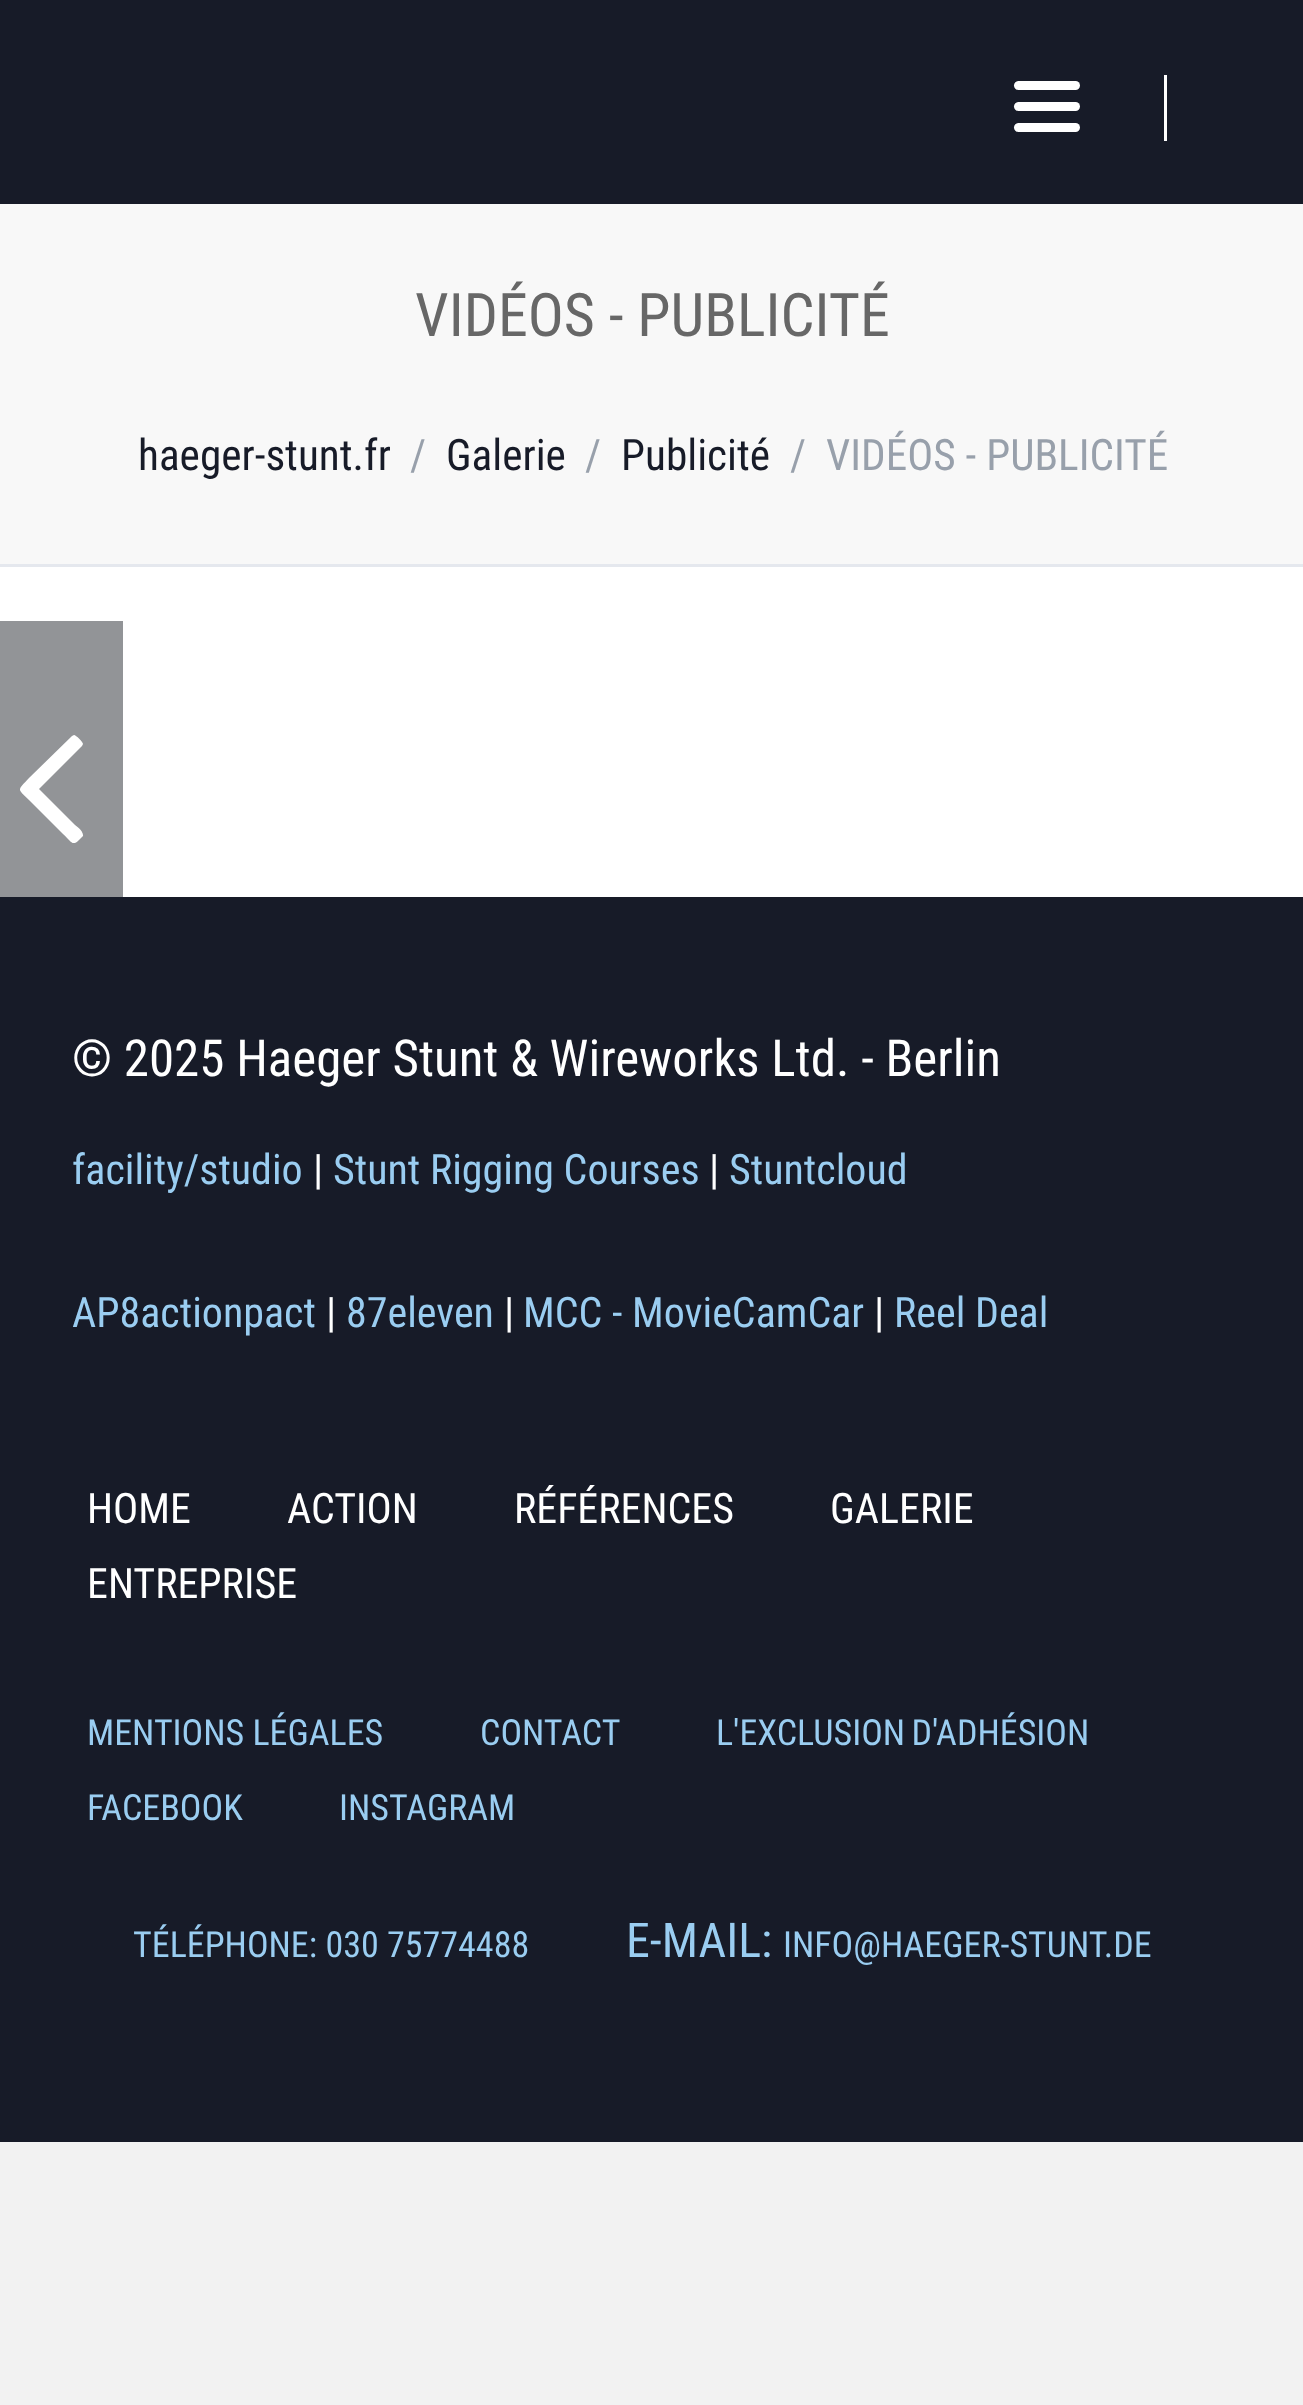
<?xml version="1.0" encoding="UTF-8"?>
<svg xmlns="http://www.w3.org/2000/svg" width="1303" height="2405">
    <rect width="100%" height="100%" fill="#F2F2F2"/>
    <rect x="0" y="567" width="1303" height="330" fill="#FFFFFF"/>
    <rect x="0" y="621" width="123" height="276" fill="#929497"/>
    <rect x="0" y="0" width="1303" height="204" fill="#171B28"/>
    <rect x="1164" y="75" width="3" height="66" fill="#FFFFFF"/>
    <rect x="1014" y="123" width="66" height="9" rx="4.5" fill="#FFFFFF"/>
    <rect x="1014" y="102" width="66" height="9" rx="4.5" fill="#FFFFFF"/>
    <rect x="1014" y="81" width="66" height="9" rx="4.5" fill="#FFFFFF"/>
    <rect x="0" y="204" width="1303" height="360" fill="#F8F8F8"/>
    <rect x="0" y="564" width="1303" height="3" fill="#E5E8EE"/>
    <text x="415" y="336" font-family="Roboto Condensed" font-size="60" fill="#676767">VIDÉOS - PUBLICITÉ</text>
    <text x="138" y="470" font-family="Roboto Condensed" font-size="43.25" fill="#171B28">haeger-stunt.fr</text>
    <text x="410" y="470" font-family="Roboto Condensed" font-size="43.25" fill="#98A0AB">/</text>
    <text x="446" y="470" font-family="Roboto Condensed" font-size="43.25" fill="#171B28">Galerie</text>
    <text x="585" y="470" font-family="Roboto Condensed" font-size="43.25" fill="#98A0AB">/</text>
    <text x="621" y="470" font-family="Roboto Condensed" font-size="43.25" fill="#171B28">Publicité</text>
    <text x="790" y="470" font-family="Roboto Condensed" font-size="43.25" fill="#98A0AB">/</text>
    <text x="826" y="470" font-family="Roboto Condensed" font-size="43.25" fill="#98A0AB">VIDÉOS - PUBLICITÉ</text>
    <path d="M 83 744 C 83 742 76 735 74 735 L 72 736 L 29 778 C 17 791 17 788 29 800 L 63 834 C 71 841 72 847 79 840 L 83 836 C 84 831 75 825 75 825 L 39 789 L 82 746 Z" fill="#FFFFFF"/>
    <rect x="0" y="897" width="1303" height="1245" fill="#171B28"/>
    <text x="72" y="1076" font-family="Roboto Condensed" font-size="51" fill="#FFFFFF">© 2025 Haeger Stunt &amp; Wireworks Ltd. - Berlin</text>
    <text x="72" y="1184" font-family="Roboto Condensed" font-size="42" fill="#9ACDF1">facility/studio</text>
    <text x="313" y="1184" font-family="Roboto Condensed" font-size="42" fill="#FFFFFF">|</text>
    <text x="333" y="1184" font-family="Roboto Condensed" font-size="42" fill="#9ACDF1">Stunt Rigging Courses</text>
    <text x="709" y="1184" font-family="Roboto Condensed" font-size="42" fill="#FFFFFF">|</text>
    <text x="729" y="1184" font-family="Roboto Condensed" font-size="42" fill="#9ACDF1">Stuntcloud</text>
    <text x="72" y="1327" font-family="Roboto Condensed" font-size="42" fill="#9ACDF1">AP8actionpact</text>
    <text x="326" y="1327" font-family="Roboto Condensed" font-size="42" fill="#FFFFFF">|</text>
    <text x="346" y="1327" font-family="Roboto Condensed" font-size="42" fill="#9ACDF1">87eleven</text>
    <text x="504" y="1327" font-family="Roboto Condensed" font-size="42" fill="#FFFFFF">|</text>
    <text x="523" y="1327" font-family="Roboto Condensed" font-size="42" fill="#9ACDF1">MCC - MovieCamCar</text>
    <text x="874" y="1327" font-family="Roboto Condensed" font-size="42" fill="#FFFFFF">|</text>
    <text x="894" y="1327" font-family="Roboto Condensed" font-size="42" fill="#9ACDF1">Reel Deal</text>
    <text x="87" y="1523" font-family="Roboto Condensed" font-size="42" fill="#FFFFFF">HOME</text>
    <text x="287" y="1523" font-family="Roboto Condensed" font-size="42" fill="#FFFFFF">ACTION</text>
    <text x="514" y="1523" font-family="Roboto Condensed" font-size="42" fill="#FFFFFF">RÉFÉRENCES</text>
    <text x="830" y="1523" font-family="Roboto Condensed" font-size="42" fill="#FFFFFF">GALERIE</text>
    <text x="87" y="1598" font-family="Roboto Condensed" font-size="42" fill="#FFFFFF">ENTREPRISE</text>
    <text x="87" y="1745" font-family="Roboto Condensed" font-size="36" fill="#9ACDF1">MENTIONS LÉGALES</text>
    <text x="480" y="1745" font-family="Roboto Condensed" font-size="36" fill="#9ACDF1">CONTACT</text>
    <text x="716" y="1745" word-spacing="-2" font-family="Roboto Condensed" font-size="36" fill="#9ACDF1">L'EXCLUSION D'ADHÉSION</text>
    <text x="87" y="1820" font-family="Roboto Condensed" font-size="36" fill="#9ACDF1">FACEBOOK</text>
    <text x="339" y="1820" font-family="Roboto Condensed" font-size="36" fill="#9ACDF1">INSTAGRAM</text>
    <text x="133" y="1957" font-family="Roboto Condensed" font-size="36" fill="#9ACDF1">TÉLÉPHONE: 030 75774488</text>
    <text x="626" y="1957" font-family="Roboto Condensed" font-size="48" fill="#9ACDF1">E-MAIL:</text>
    <text x="783" y="1957" font-family="Roboto Condensed" font-size="36" fill="#9ACDF1">INFO@HAEGER-STUNT.DE</text>
</svg>
